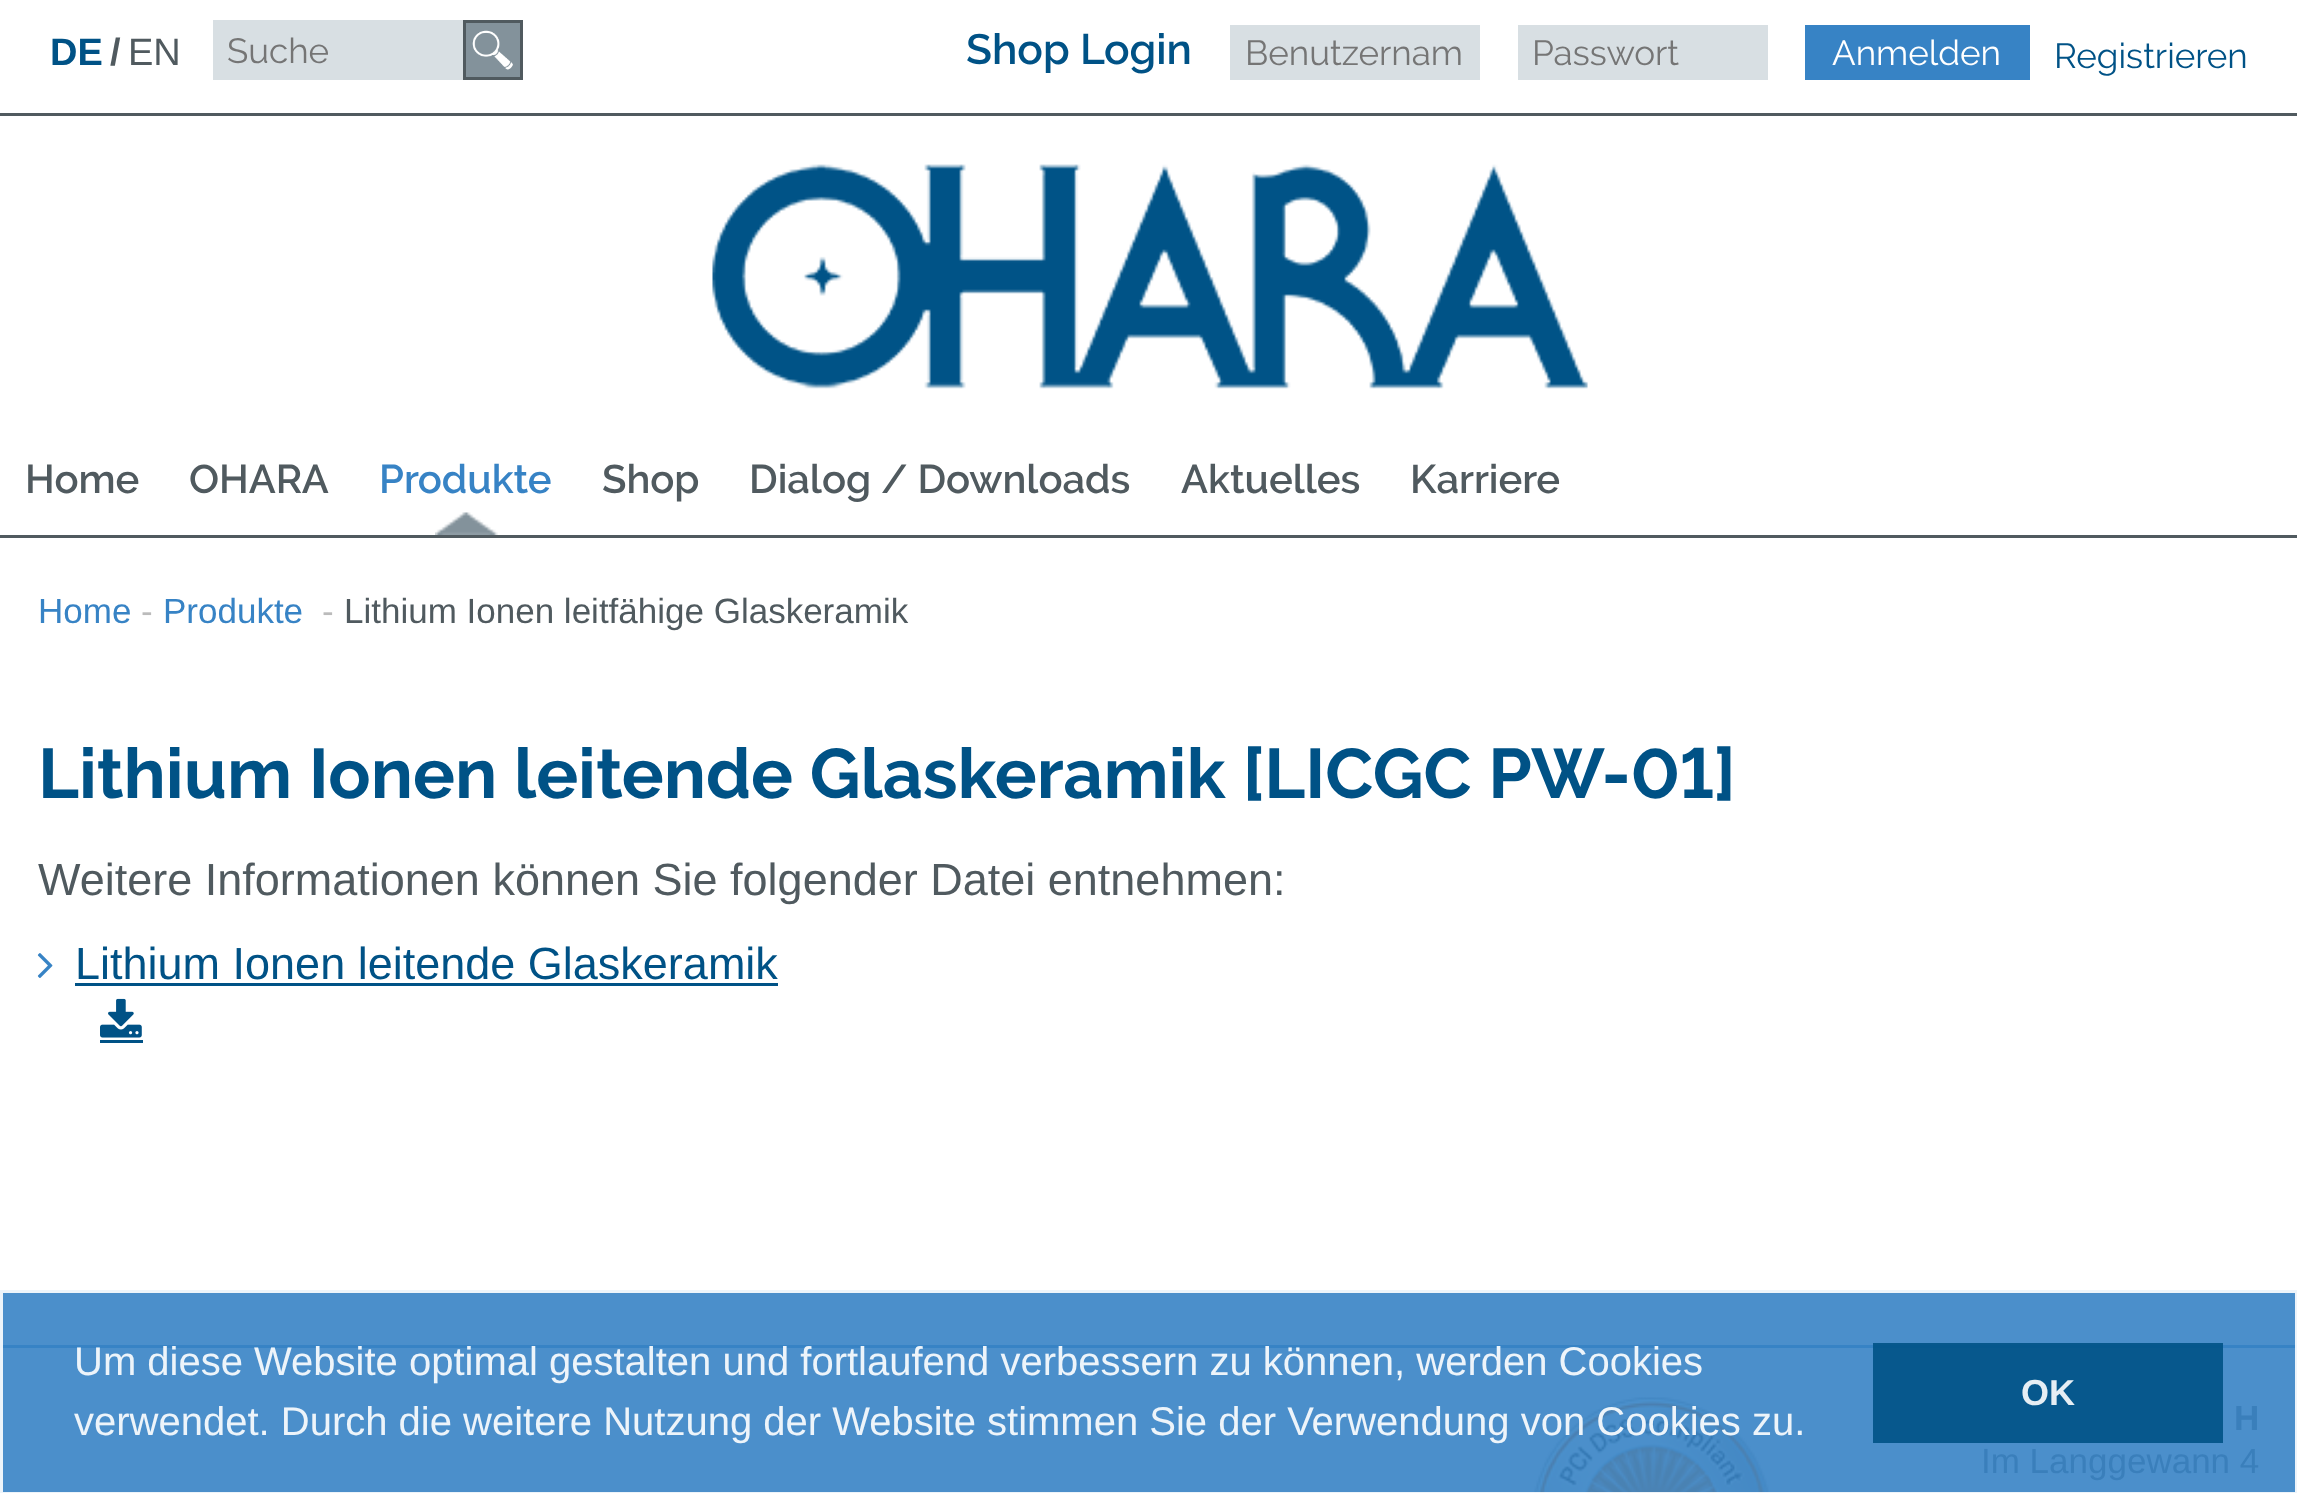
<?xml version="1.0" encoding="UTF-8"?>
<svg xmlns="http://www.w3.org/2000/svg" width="2297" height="1493">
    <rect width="100%" height="100%" fill="#FFFFFF"/>
    <rect x="0" y="1290" width="2297" height="203" fill="#4B8FCB"/>
    <rect x="0" y="113" width="2297" height="3" fill="#505A5F"/>
    <text x="50" y="65" font-family="Liberation Sans" font-size="38" font-weight="700" fill="#005286">DE</text>
    <text x="110" y="65" font-family="Liberation Sans" font-size="38" font-weight="700" fill="#505A5F">/</text>
    <text x="128" y="65" font-family="Liberation Sans" font-size="38" fill="#505A5F">EN</text>
    <rect x="213" y="20" width="250" height="60" fill="#D8DFE3"/>
    <text x="227" y="63" font-family="Raleway" font-size="35" fill="#757575">Suche</text>
    <image x="466" y="23" width="54" height="54" href="img_01.png"/>
    <rect x="464.5" y="21.5" width="57" height="57" fill="none" stroke="#505A5F" stroke-width="3"/>
    <text x="966" y="64" font-family="Raleway" font-size="42.5" font-weight="600" fill="#005286">Shop Login</text>
    <rect x="1230" y="25" width="250" height="55" fill="#D8DFE3"/>
    <text x="1245" y="65" font-family="Raleway" font-size="35" fill="#757575">Benutzernam</text>
    <rect x="1518" y="25" width="250" height="55" fill="#D8DFE3"/>
    <text x="1532" y="65" font-family="Raleway" font-size="35" fill="#757575">Passwort</text>
    <rect x="1805" y="25" width="225" height="55" fill="#3783C5"/>
    <text x="1832" y="65" font-family="Raleway" font-size="35" fill="#FFFFFF">Anmelden</text>
    <text x="2054" y="68" font-family="Raleway" font-size="35" fill="#005286">Registrieren</text>
    <image x="712" y="164" width="876" height="225" href="img_02.png"/>
    <rect x="0" y="535" width="2297" height="3" fill="#505A5F"/>
    <text x="25" y="493" font-family="Raleway" font-size="40" font-weight="600" fill="#505A5F">Home</text>
    <text x="189" y="493" font-family="Raleway" font-size="40" font-weight="600" fill="#505A5F">OHARA</text>
    <image x="435" y="512" width="63" height="23" href="img_03.png"/>
    <text x="379" y="493" font-family="Raleway" font-size="40" font-weight="600" fill="#3783C5">Produkte</text>
    <text x="602" y="493" font-family="Raleway" font-size="40" font-weight="600" fill="#505A5F">Shop</text>
    <text x="749" y="493" font-family="Raleway" font-size="40" font-weight="600" fill="#505A5F">Dialog / Downloads</text>
    <text x="1181" y="493" font-family="Raleway" font-size="40" font-weight="600" fill="#505A5F">Aktuelles</text>
    <text x="1410" y="493" font-family="Raleway" font-size="40" font-weight="600" fill="#505A5F">Karriere</text>
    <text x="38" y="623" font-family="Liberation Sans" font-size="35" fill="#3783C5">Home</text>
    <text x="141" y="623" font-family="Liberation Sans" font-size="35" fill="#BBBBBB">-</text>
    <text x="163" y="623" font-family="Liberation Sans" font-size="35" fill="#3783C5">Produkte</text>
    <text x="322" y="623" font-family="Liberation Sans" font-size="35" fill="#BBBBBB">-</text>
    <text x="344" y="623" font-family="Liberation Sans" font-size="35" fill="#505A5F">Lithium Ionen leitfähige Glaskeramik</text>
    <text x="38" y="798" font-family="Raleway" font-size="70" font-weight="700" fill="#005286">Lithium Ionen leitende Glaskeramik [LICGC PW-01]</text>
    <text x="38" y="895" font-family="Liberation Sans" font-size="45" fill="#505A5F">Weitere Informationen können Sie folgender Datei entnehmen:</text>
    <image x="37" y="953" width="16" height="25" href="img_04.png"/>
    <text x="75" y="979" font-family="Liberation Sans" font-size="45" fill="#005286">Lithium Ionen leitende Glaskeramik</text>
    <rect x="75" y="983" width="703" height="3" fill="#005286"/>
    <rect x="100" y="1040" width="43" height="3" fill="#005286"/>
    <image x="100" y="998" width="42" height="40" href="img_05.png"/>
    <rect x="0" y="1345" width="2297" height="3" fill="#3783C5"/>
    <image x="1534" y="1397" width="236" height="96" href="img_06.png"/>
    <text x="2234" y="1430" font-family="Liberation Sans" font-size="35" font-weight="700" fill="#3A7FBB">H</text>
    <text x="1981" y="1473" font-family="Liberation Sans" font-size="35" fill="#3A7FBB">Im Langgewann 4</text>
    <rect x="1.5" y="1291.5" width="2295" height="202" fill="none" stroke="#FFFFFF" stroke-opacity="0.9" stroke-width="3"/>
    <text font-family="Liberation Sans" font-size="40" fill="#EDF4FA">
        <tspan x="74" y="1375">Um diese Website optimal gestalten und fortlaufend verbessern zu können, werden Cookies</tspan>
        <tspan x="74" y="1435">verwendet. Durch die weitere Nutzung der Website stimmen Sie der Verwendung von Cookies zu.</tspan>
    </text>
    <rect x="1873" y="1343" width="350" height="100" fill="#005286" fill-opacity="0.9"/>
    <text x="2021" y="1405" font-family="Liberation Sans" font-size="36" font-weight="700" fill="#E6EEF4">OK</text>
</svg>
